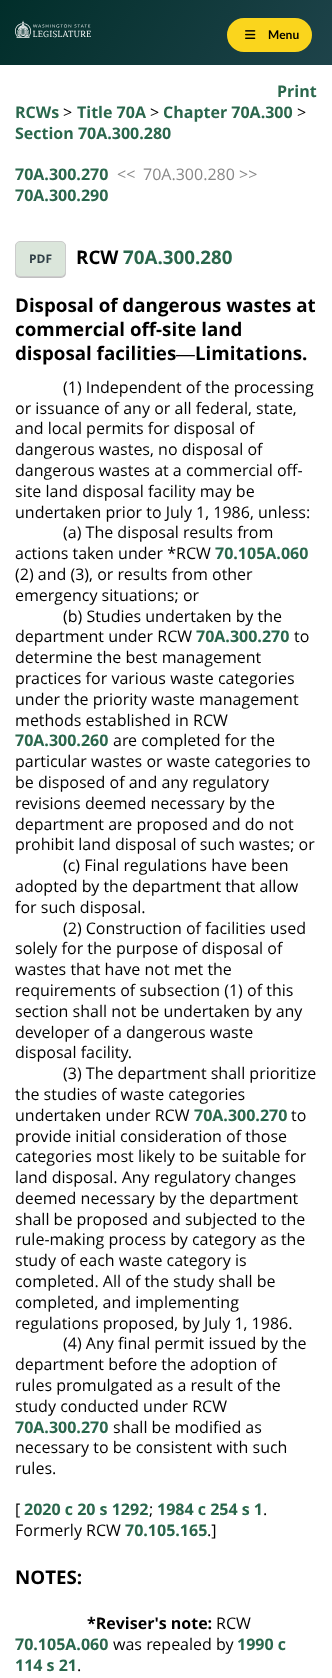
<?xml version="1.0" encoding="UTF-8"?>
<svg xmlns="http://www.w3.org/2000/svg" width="332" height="1678">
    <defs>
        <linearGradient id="g1" gradientUnits="userSpaceOnUse" x1="295" y1="120" x2="37" y2="-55"><stop offset="0" stop-color="#1E434A"/><stop offset="1" stop-color="#012E2A"/></linearGradient>
        <filter id="blur1" x="-50%" y="-200%" width="200%" height="500%"><feGaussianBlur stdDeviation="0.5"/></filter>
    </defs>
    <rect width="100%" height="100%" fill="#FFFFFF"/>
    <rect x="0" y="0" width="332" height="65" fill="url(#g1)"/>
    <image x="15" y="20" width="76" height="18" href="img_01.png"/>
    <rect x="228" y="19" width="83" height="32" rx="16" fill="#FAD51D" stroke="#FAD51D" stroke-width="2"/>
    <image x="245" y="30" width="11" height="9" href="img_02.png"/>
    <text x="268" y="39" font-family="Lato" font-size="12" font-weight="700" fill="#000000">Menu</text>
    <text x="277" y="97" font-family="Open Sans" font-size="16" font-weight="700" fill="#2B674D">Print</text>
    <text x="15" y="118" font-family="Open Sans" font-size="16" font-weight="700" fill="#2B674D">RCWs</text>
    <text x="63" y="118" font-family="Open Sans" font-size="16" fill="#000000">&gt;</text>
    <text x="77" y="118" font-family="Open Sans" font-size="16" font-weight="700" fill="#2B674D">Title 70A</text>
    <text x="150" y="118" font-family="Open Sans" font-size="16" fill="#000000">&gt;</text>
    <text x="163" y="118" font-family="Open Sans" font-size="16" font-weight="700" fill="#2B674D">Chapter 70A.300</text>
    <text x="297" y="118" font-family="Open Sans" font-size="16" fill="#000000">&gt;</text>
    <text x="15" y="139" font-family="Open Sans" font-size="16" font-weight="700" fill="#2B674D">Section 70A.300.280</text>
    <text x="15" y="180" font-family="Open Sans" font-size="16" font-weight="700" fill="#2B674D">70A.300.270</text>
    <text x="117" y="180" font-family="Open Sans" font-size="16" fill="#888888">&lt;&lt;</text>
    <text x="143" y="180" font-family="Open Sans" font-size="16" fill="#888888">70A.300.280 &gt;&gt;</text>
    <text x="15" y="201" font-family="Open Sans" font-size="16" font-weight="700" fill="#2B674D">70A.300.290</text>
    <rect x="15" y="242" width="51" height="36" rx="5" fill="#333333" fill-opacity="0.3" filter="url(#blur1)"/>
    <rect x="15.5" y="241.5" width="50" height="35" rx="4.5" fill="#DBE6DB" stroke="#CCCCCC"/>
    <text x="29" y="263" font-family="Open Sans" font-size="12" font-weight="700" fill="#2F3E46">PDF</text>
    <text x="76" y="264" font-family="Open Sans" font-size="18.75" font-weight="700" fill="#000000">RCW</text>
    <text x="123" y="264" font-family="Open Sans" font-size="18.75" font-weight="700" fill="#2B674D">70A.300.280</text>
    <text font-family="Open Sans" font-size="18.75" font-weight="700" fill="#000000">
        <tspan x="15" y="312">Disposal of dangerous wastes at</tspan>
        <tspan x="15" y="336">commercial off-site land</tspan>
        <tspan x="15" y="360">disposal facilities</tspan>
    </text>
    <text x="176" y="360" font-family="Liberation Serif" font-size="18.75" font-weight="700" fill="#000000">—</text>
    <text x="195" y="360" font-family="Open Sans" font-size="18.75" font-weight="700" fill="#000000">Limitations.</text>
    <text x="63" y="393" font-family="Open Sans" font-size="16" fill="#000000">(1) Independent of the processing</text>
    <text font-family="Open Sans" font-size="16" fill="#000000">
        <tspan x="15" y="414">or issuance of any or all federal, state,</tspan>
        <tspan x="15" y="434">and local permits for disposal of</tspan>
        <tspan x="15" y="455">dangerous wastes, no disposal of</tspan>
        <tspan x="15" y="476">dangerous wastes at a commercial off-</tspan>
        <tspan x="15" y="497">site land disposal facility may be</tspan>
        <tspan x="15" y="518">undertaken prior to July 1, 1986, unless:</tspan>
    </text>
    <text x="63" y="538" font-family="Open Sans" font-size="16" fill="#000000">(a) The disposal results from</text>
    <text x="15" y="559" font-family="Open Sans" font-size="16" fill="#000000">actions taken under *RCW</text>
    <text x="215" y="559" font-family="Open Sans" font-size="16" font-weight="700" fill="#2B674D">70.105A.060</text>
    <text font-family="Open Sans" font-size="16" fill="#000000">
        <tspan x="15" y="580">(2) and (3), or results from other</tspan>
        <tspan x="15" y="601">emergency situations; or</tspan>
    </text>
    <text x="63" y="622" font-family="Open Sans" font-size="16" fill="#000000">(b) Studies undertaken by the</text>
    <text x="15" y="642" font-family="Open Sans" font-size="16" fill="#000000">department under RCW</text>
    <text x="196" y="642" font-family="Open Sans" font-size="16" font-weight="700" fill="#2B674D">70A.300.270</text>
    <text x="294" y="642" font-family="Open Sans" font-size="16" fill="#000000">to</text>
    <text font-family="Open Sans" font-size="16" fill="#000000">
        <tspan x="15" y="663">determine the best management</tspan>
        <tspan x="15" y="684">practices for various waste categories</tspan>
        <tspan x="15" y="705">under the priority waste management</tspan>
        <tspan x="15" y="726">methods established in RCW</tspan>
    </text>
    <text x="15" y="746" font-family="Open Sans" font-size="16" font-weight="700" fill="#2B674D">70A.300.260</text>
    <text x="113" y="746" font-family="Open Sans" font-size="16" fill="#000000">are completed for the</text>
    <text font-family="Open Sans" font-size="16" fill="#000000">
        <tspan x="15" y="767">particular wastes or waste categories to</tspan>
        <tspan x="15" y="788">be disposed of and any regulatory</tspan>
        <tspan x="15" y="809">revisions deemed necessary by the</tspan>
        <tspan x="15" y="830">department are proposed and do not</tspan>
        <tspan x="15" y="850">prohibit land disposal of such wastes; or</tspan>
    </text>
    <text x="63" y="871" font-family="Open Sans" font-size="16" fill="#000000">(c) Final regulations have been</text>
    <text font-family="Open Sans" font-size="16" fill="#000000">
        <tspan x="15" y="892">adopted by the department that allow</tspan>
        <tspan x="15" y="913">for such disposal.</tspan>
    </text>
    <text x="63" y="934" font-family="Open Sans" font-size="16" fill="#000000">(2) Construction of facilities used</text>
    <text font-family="Open Sans" font-size="16" fill="#000000">
        <tspan x="15" y="954">solely for the purpose of disposal of</tspan>
        <tspan x="15" y="975">wastes that have not met the</tspan>
        <tspan x="15" y="996">requirements of subsection (1) of this</tspan>
        <tspan x="15" y="1017">section shall not be undertaken by any</tspan>
        <tspan x="15" y="1038">developer of a dangerous waste</tspan>
        <tspan x="15" y="1058">disposal facility.</tspan>
    </text>
    <text x="63" y="1079" font-family="Open Sans" font-size="16" fill="#000000">(3) The department shall prioritize</text>
    <text font-family="Open Sans" font-size="16" fill="#000000">
        <tspan x="15" y="1100">the studies of waste categories</tspan>
        <tspan x="15" y="1121">undertaken under RCW</tspan>
    </text>
    <text x="194" y="1121" font-family="Open Sans" font-size="16" font-weight="700" fill="#2B674D">70A.300.270</text>
    <text x="291" y="1121" font-family="Open Sans" font-size="16" fill="#000000">to</text>
    <text font-family="Open Sans" font-size="16" fill="#000000">
        <tspan x="15" y="1142">provide initial consideration of those</tspan>
        <tspan x="15" y="1162">categories most likely to be suitable for</tspan>
        <tspan x="15" y="1183">land disposal. Any regulatory changes</tspan>
        <tspan x="15" y="1204">deemed necessary by the department</tspan>
        <tspan x="15" y="1225">shall be proposed and subjected to the</tspan>
        <tspan x="15" y="1245">rule-making process by category as the</tspan>
        <tspan x="15" y="1266">study of each waste category is</tspan>
        <tspan x="15" y="1287">completed. All of the study shall be</tspan>
        <tspan x="15" y="1308">completed, and implementing</tspan>
        <tspan x="15" y="1329">regulations proposed, by July 1, 1986.</tspan>
    </text>
    <text x="63" y="1349" font-family="Open Sans" font-size="16" fill="#000000">(4) Any final permit issued by the</text>
    <text font-family="Open Sans" font-size="16" fill="#000000">
        <tspan x="15" y="1370">department before the adoption of</tspan>
        <tspan x="15" y="1391">rules promulgated as a result of the</tspan>
        <tspan x="15" y="1412">study conducted under RCW</tspan>
    </text>
    <text x="15" y="1433" font-family="Open Sans" font-size="16" font-weight="700" fill="#2B674D">70A.300.270</text>
    <text x="113" y="1433" font-family="Open Sans" font-size="16" fill="#000000">shall be modified as</text>
    <text font-family="Open Sans" font-size="16" fill="#000000">
        <tspan x="15" y="1453">necessary to be consistent with such</tspan>
        <tspan x="15" y="1474">rules.</tspan>
    </text>
    <text x="15" y="1515" font-family="Open Sans" font-size="16" fill="#000000">[</text>
    <text x="24" y="1515" font-family="Open Sans" font-size="16" font-weight="700" fill="#2B674D">2020 c 20 s 1292</text>
    <text x="149" y="1515" font-family="Open Sans" font-size="16" fill="#000000">;</text>
    <text x="157" y="1515" font-family="Open Sans" font-size="16" font-weight="700" fill="#2B674D">1984 c 254 s 1</text>
    <text x="263" y="1515" font-family="Open Sans" font-size="16" fill="#000000">.</text>
    <text x="15" y="1536" font-family="Open Sans" font-size="16" fill="#000000">Formerly RCW</text>
    <text x="125" y="1536" font-family="Open Sans" font-size="16" font-weight="700" fill="#2B674D">70.105.165</text>
    <text x="207" y="1536" font-family="Open Sans" font-size="16" fill="#000000">.]</text>
    <text x="15" y="1584" font-family="Open Sans" font-size="18.75" font-weight="700" fill="#000000">NOTES:</text>
    <text x="87" y="1629" font-family="Open Sans" font-size="16" font-weight="700" fill="#000000">*Reviser's note:</text>
    <text x="216" y="1629" font-family="Open Sans" font-size="16" fill="#000000">RCW</text>
    <text x="15" y="1650" font-family="Open Sans" font-size="16" font-weight="700" fill="#2B674D">70.105A.060</text>
    <text x="113" y="1650" font-family="Open Sans" font-size="16" fill="#000000">was repealed by</text>
    <text x="237" y="1650" font-family="Open Sans" font-size="16" font-weight="700" fill="#2B674D">1990 c</text>
    <text x="15" y="1671" font-family="Open Sans" font-size="16" font-weight="700" fill="#2B674D">114 s 21</text>
    <text x="77" y="1671" font-family="Open Sans" font-size="16" fill="#000000">.</text>
</svg>
